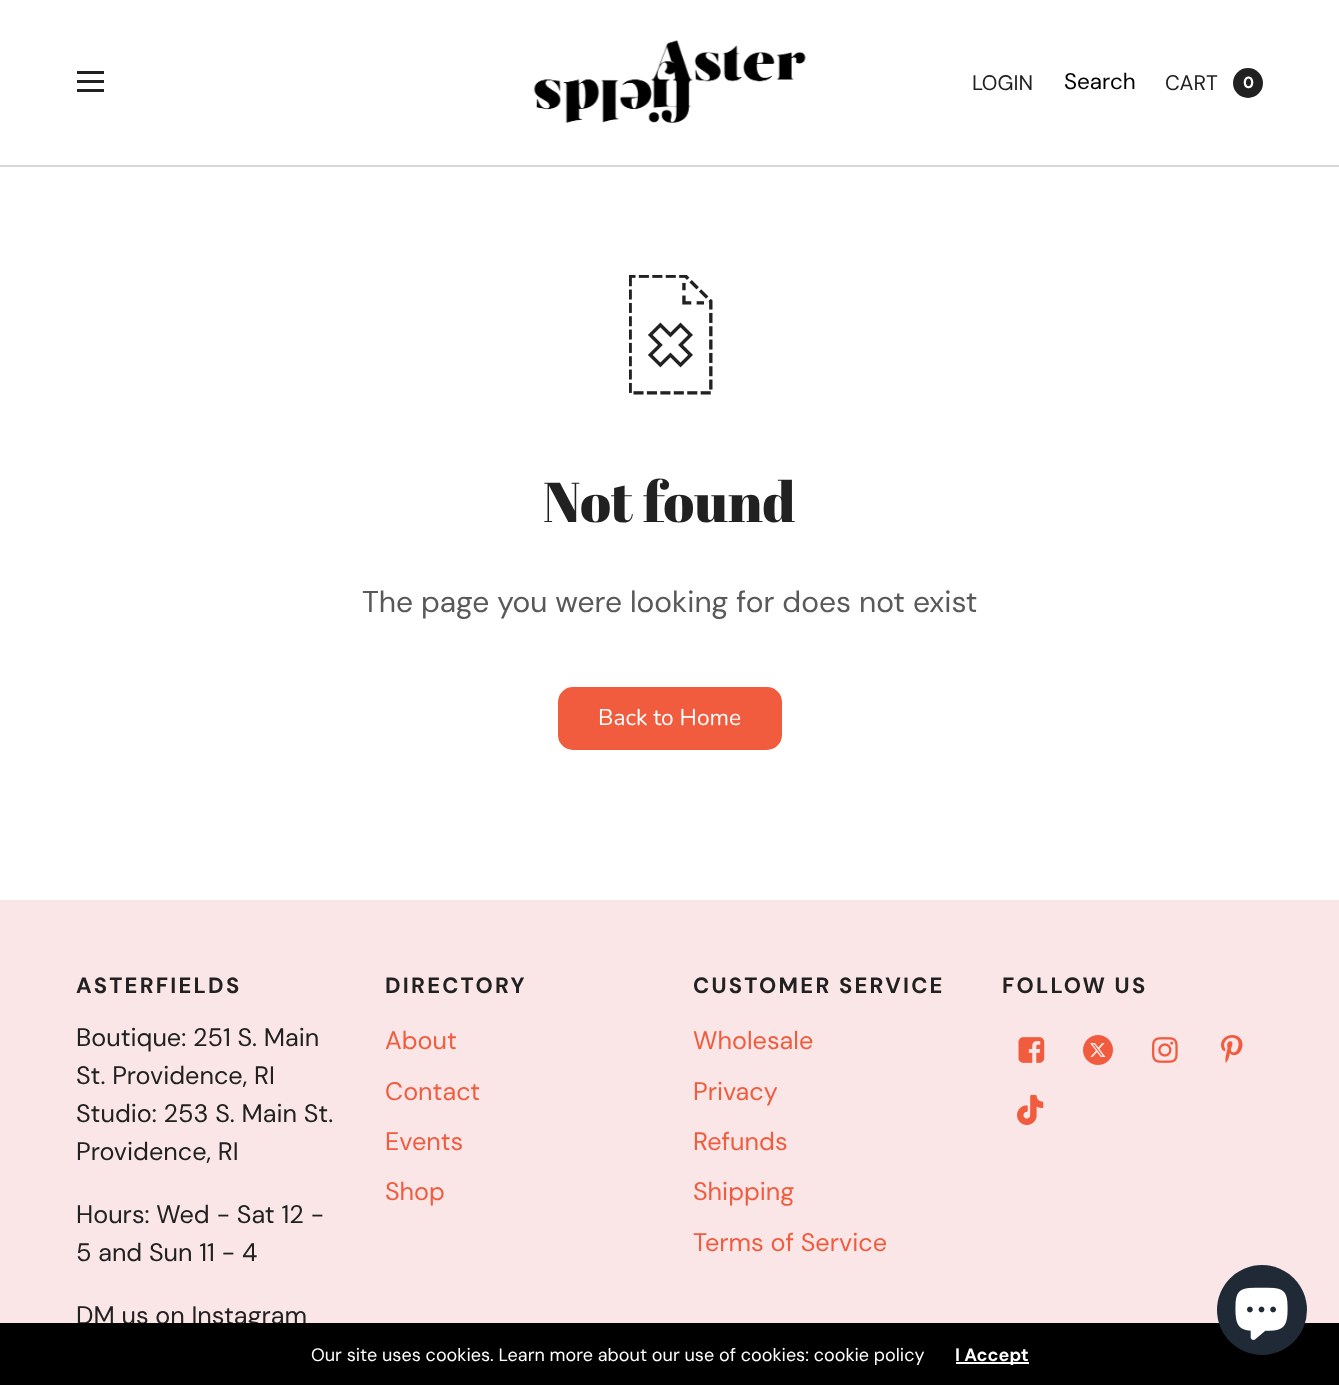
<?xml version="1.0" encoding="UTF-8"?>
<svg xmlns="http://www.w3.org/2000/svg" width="1339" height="1385">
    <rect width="100%" height="100%" fill="#FFFFFF"/>
    <rect x="0" y="165" width="1339" height="2" fill="#D7D5DE"/>
    <rect x="77" y="71" width="27" height="3" fill="#212121"/>
    <rect x="77" y="80" width="27" height="3" fill="#212121"/>
    <rect x="77" y="89" width="27" height="3" fill="#212121"/>
    <image x="533" y="40" width="273" height="83" href="img_01.png"/>
    <text x="972" y="90" font-family="'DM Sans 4'" font-size="21" fill="#212121">LOGIN</text>
    <text x="1064" y="89" font-family="'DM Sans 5'" font-size="22.5" fill="#000000">Search</text>
    <text x="1165" y="90" font-family="'DM Sans 4'" font-size="21" fill="#212121">CART</text>
    <circle cx="1248" cy="83" r="15" fill="#212121"/>
    <text x="1243" y="88" font-family="'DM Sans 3'" font-size="16" font-weight="700" fill="#FFFFFF">0</text>
    <image x="629" y="275" width="84" height="120" href="img_02.png"/>
    <text x="543" y="522" font-family="Abril Fatface" font-size="56.25" fill="#212121">Not found</text>
    <text x="362" y="612" font-family="DM Sans" font-size="30" fill="#595959">The page you were looking for does not exist</text>
    <rect x="559" y="688" width="222" height="61" rx="14" fill="#F15C3E" stroke="#F15C3E" stroke-width="2"/>
    <text x="598" y="725" font-family="Nunito" font-size="22.75" fill="#FFFFFF">Back to Home</text>
    <rect x="0" y="900" width="1339" height="423" fill="#FAE6E7"/>
    <text x="76" y="993" font-family="DM Sans" font-size="22" font-weight="700" letter-spacing="2.25" fill="#212121">ASTERFIELDS</text>
    <text font-family="'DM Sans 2'" font-size="25.25" fill="#212121">
        <tspan x="76" y="1046">Boutique: 251 S. Main</tspan>
        <tspan x="76" y="1084">St. Providence, RI</tspan>
        <tspan x="76" y="1122">Studio: 253 S. Main St.</tspan>
        <tspan x="76" y="1160">Providence, RI</tspan>
    </text>
    <text font-family="'DM Sans 2'" font-size="25.25" fill="#212121">
        <tspan x="76" y="1223">Hours: Wed - Sat 12 -</tspan>
        <tspan x="76" y="1261">5 and Sun 11 - 4</tspan>
    </text>
    <text x="76" y="1324" font-family="'DM Sans 2'" font-size="25.25" fill="#212121">DM us on Instagram</text>
    <text x="385" y="993" font-family="DM Sans" font-size="22" font-weight="700" letter-spacing="2.25" fill="#212121">DIRECTORY</text>
    <text x="385" y="1049" font-family="'DM Sans 2'" font-size="25.25" fill="#F15C3E">About</text>
    <text font-family="'DM Sans 2'" font-size="25.25" fill="#F15C3E">
        <tspan x="385" y="1100">Contact</tspan>
        <tspan x="385" y="1150">Events</tspan>
        <tspan x="385" y="1200">Shop</tspan>
    </text>
    <text x="693" y="993" font-family="DM Sans" font-size="22" font-weight="700" letter-spacing="2.25" fill="#212121">CUSTOMER SERVICE</text>
    <text x="693" y="1049" font-family="'DM Sans 2'" font-size="25.25" fill="#F15C3E">Wholesale</text>
    <text font-family="'DM Sans 2'" font-size="25.25" fill="#F15C3E">
        <tspan x="693" y="1100">Privacy</tspan>
        <tspan x="693" y="1150">Refunds</tspan>
        <tspan x="693" y="1200">Shipping</tspan>
    </text>
    <text x="693" y="1251" font-family="'DM Sans 2'" font-size="25.25" fill="#F15C3E">Terms of Service</text>
    <text x="1002" y="993" font-family="DM Sans" font-size="22" font-weight="700" letter-spacing="2.25" fill="#212121">FOLLOW US</text>
    <image x="1018" y="1037" width="27" height="26" href="img_03.png"/>
    <image x="1083" y="1035" width="30" height="30" href="img_04.png"/>
    <image x="1152" y="1037" width="26" height="26" href="img_05.png"/>
    <image x="1221" y="1035" width="22" height="28" href="img_06.png"/>
    <image x="1017" y="1095" width="27" height="30" href="img_07.png"/>
    <rect x="0" y="1323" width="1339" height="62" fill="#000000"/>
    <circle cx="1262" cy="1310" r="45" fill="#202A36"/>
    <image x="1235" y="1287" width="53" height="53" href="img_08.png"/>
    <text x="311" y="1361" font-family="'DM Sans 3'" font-size="18" fill="#FFFFFF">Our site uses cookies. Learn more about our use of cookies: cookie policy</text>
    <rect x="956" y="1362" width="73" height="2" fill="#FFFFFF"/>
    <text x="955" y="1361" font-family="'DM Sans 2'" font-size="18" font-weight="700" fill="#FFFFFF">I Accept</text>
</svg>
